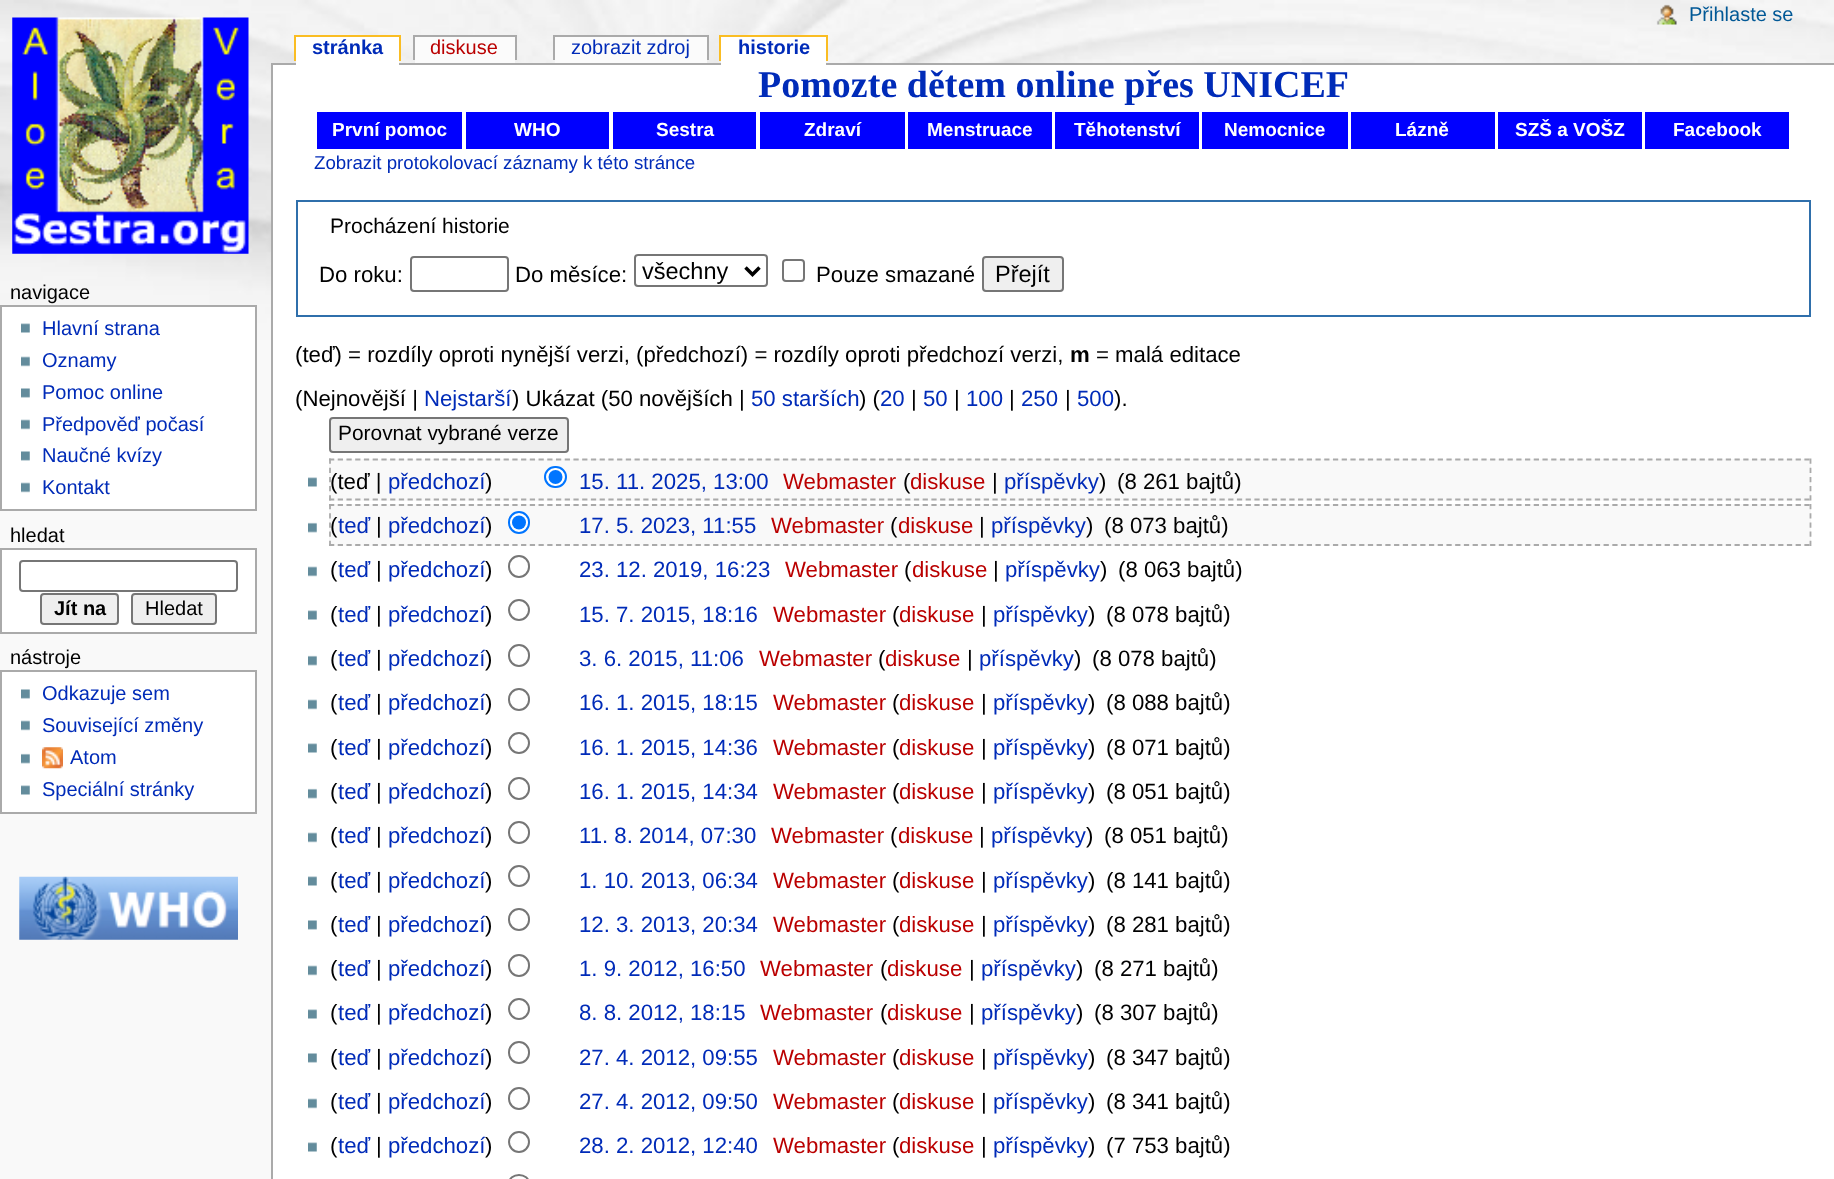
<?xml version="1.0" encoding="UTF-8"?>
<svg xmlns="http://www.w3.org/2000/svg" width="1834" height="1179">
    <rect width="100%" height="100%" fill="#F9F9F9"/>
    <image x="0" y="0" width="1834" height="340" href="img_01.png"/>
    <image x="1656" y="4" width="21" height="21" href="img_02.png"/>
    <text x="1689" y="21" font-family="Liberation Sans" font-size="20" fill="#005896">Přihlaste se</text>
    <image x="12" y="17" width="237" height="237" href="img_03.png"/>
    <rect x="271" y="63" width="1563" height="2" fill="#AAAAAA"/>
    <rect x="296" y="37" width="103" height="28" fill="#FFFFFF"/>
    <text x="312" y="54" font-family="Liberation Sans" font-size="20" font-weight="700" fill="#002BB8">stránka</text>
    <rect x="294" y="35" width="107" height="2" fill="#FABD23"/>
    <rect x="399" y="35" width="2" height="26" fill="#FABD23"/>
    <rect x="294" y="35" width="2" height="26" fill="#FABD23"/>
    <rect x="415" y="37" width="100" height="26" fill="#FBFBFB"/>
    <text x="430" y="54" font-family="Liberation Sans" font-size="20" fill="#BA0000">diskuse</text>
    <rect x="413" y="35" width="103" height="2" fill="#AAAAAA"/>
    <rect x="515" y="35" width="2" height="25" fill="#AAAAAA"/>
    <rect x="413" y="35" width="2" height="25" fill="#AAAAAA"/>
    <rect x="555" y="37" width="152" height="26" fill="#FBFBFB"/>
    <text x="571" y="54" font-family="Liberation Sans" font-size="20" fill="#002BB8">zobrazit zdroj</text>
    <rect x="553" y="35" width="156" height="2" fill="#AAAAAA"/>
    <rect x="707" y="35" width="2" height="25" fill="#AAAAAA"/>
    <rect x="553" y="35" width="2" height="25" fill="#AAAAAA"/>
    <rect x="721" y="37" width="105" height="28" fill="#FFFFFF"/>
    <text x="738" y="54" font-family="Liberation Sans" font-size="20" font-weight="700" fill="#002BB8">historie</text>
    <rect x="719" y="35" width="109" height="2" fill="#FABD23"/>
    <rect x="826" y="35" width="2" height="26" fill="#FABD23"/>
    <rect x="719" y="35" width="2" height="26" fill="#FABD23"/>
    <text x="10" y="299" font-family="Liberation Sans" font-size="20" fill="#000000">navigace</text>
    <rect x="1" y="306" width="255" height="204" fill="#FFFFFF" stroke="#AAAAAA" stroke-width="2"/>
    <image x="21" y="323" width="9" height="10" href="img_04.png"/>
    <text x="42" y="335" font-family="Liberation Sans" font-size="20" fill="#002BB8">Hlavní strana</text>
    <image x="21" y="356" width="9" height="11" href="img_05.png"/>
    <text x="42" y="367" font-family="Liberation Sans" font-size="20" fill="#002BB8">Oznamy</text>
    <image x="21" y="388" width="9" height="10" href="img_06.png"/>
    <text x="42" y="399" font-family="Liberation Sans" font-size="20" fill="#002BB8">Pomoc online</text>
    <image x="21" y="419" width="9" height="11" href="img_05.png"/>
    <text x="42" y="431" font-family="Liberation Sans" font-size="20" fill="#002BB8">Předpověď počasí</text>
    <image x="21" y="451" width="9" height="10" href="img_06.png"/>
    <text x="42" y="462" font-family="Liberation Sans" font-size="20" fill="#002BB8">Naučné kvízy</text>
    <image x="21" y="482" width="9" height="11" href="img_05.png"/>
    <text x="42" y="494" font-family="Liberation Sans" font-size="20" fill="#002BB8">Kontakt</text>
    <text x="10" y="542" font-family="Liberation Sans" font-size="20" fill="#000000">hledat</text>
    <rect x="1" y="549" width="255" height="84" fill="#FFFFFF" stroke="#AAAAAA" stroke-width="2"/>
    <rect x="20" y="561" width="217" height="30" rx="3" fill="none" stroke="#767676" stroke-width="2"/>
    <rect x="41" y="594" width="77" height="30" rx="3" fill="#EFEFEF" stroke="#767676" stroke-width="2"/>
    <text x="54" y="615" font-family="Liberation Sans" font-size="20" font-weight="700" fill="#000000">Jít na</text>
    <rect x="132" y="594" width="84" height="30" rx="3" fill="#EFEFEF" stroke="#767676" stroke-width="2"/>
    <text x="145" y="615" font-family="Liberation Sans" font-size="20" fill="#000000">Hledat</text>
    <text x="10" y="664" font-family="Liberation Sans" font-size="20" fill="#000000">nástroje</text>
    <rect x="1" y="671" width="255" height="142" fill="#FFFFFF" stroke="#AAAAAA" stroke-width="2"/>
    <image x="21" y="689" width="9" height="10" href="img_06.png"/>
    <text x="42" y="700" font-family="Liberation Sans" font-size="20" fill="#002BB8">Odkazuje sem</text>
    <image x="21" y="720" width="9" height="11" href="img_05.png"/>
    <text x="42" y="732" font-family="Liberation Sans" font-size="20" fill="#002BB8">Související změny</text>
    <image x="21" y="753" width="9" height="11" href="img_07.png"/>
    <image x="42" y="747" width="21" height="22" href="img_08.png"/>
    <text x="70" y="764" font-family="Liberation Sans" font-size="20" fill="#002BB8">Atom</text>
    <image x="21" y="785" width="9" height="10" href="img_04.png"/>
    <text x="42" y="796" font-family="Liberation Sans" font-size="20" fill="#002BB8">Speciální stránky</text>
    <image x="19" y="876" width="219" height="64" href="img_09.png"/>
    <rect x="273" y="65" width="1561" height="1114" fill="#FFFFFF"/>
    <rect x="271" y="63" width="2" height="1116" fill="#AAAAAA"/>
    <text x="758" y="97" font-family="Liberation Serif" font-size="38" font-weight="700" fill="#002BB8">Pomozte dětem online přes UNICEF</text>
    <rect x="317" y="112" width="145" height="37" fill="#0000FF"/>
    <text x="332" y="136" font-family="Liberation Sans" font-size="19" font-weight="700" fill="#FFFFFF">První pomoc</text>
    <rect x="466" y="112" width="143" height="37" fill="#0000FF"/>
    <text x="514" y="136" font-family="Liberation Sans" font-size="19" font-weight="700" fill="#FFFFFF">WHO</text>
    <rect x="613" y="112" width="143" height="37" fill="#0000FF"/>
    <text x="656" y="136" font-family="Liberation Sans" font-size="19" font-weight="700" fill="#FFFFFF">Sestra</text>
    <rect x="760" y="112" width="145" height="37" fill="#0000FF"/>
    <text x="804" y="136" font-family="Liberation Sans" font-size="19" font-weight="700" fill="#FFFFFF">Zdraví</text>
    <rect x="908" y="112" width="144" height="37" fill="#0000FF"/>
    <text x="927" y="136" font-family="Liberation Sans" font-size="19" font-weight="700" fill="#FFFFFF">Menstruace</text>
    <rect x="1055" y="112" width="144" height="37" fill="#0000FF"/>
    <text x="1074" y="136" font-family="Liberation Sans" font-size="19" font-weight="700" fill="#FFFFFF">Těhotenství</text>
    <rect x="1202" y="112" width="146" height="37" fill="#0000FF"/>
    <text x="1224" y="136" font-family="Liberation Sans" font-size="19" font-weight="700" fill="#FFFFFF">Nemocnice</text>
    <rect x="1351" y="112" width="144" height="37" fill="#0000FF"/>
    <text x="1395" y="136" font-family="Liberation Sans" font-size="19" font-weight="700" fill="#FFFFFF">Lázně</text>
    <rect x="1498" y="112" width="144" height="37" fill="#0000FF"/>
    <text x="1515" y="136" font-family="Liberation Sans" font-size="19" font-weight="700" fill="#FFFFFF">SZŠ a VOŠZ</text>
    <rect x="1645" y="112" width="144" height="37" fill="#0000FF"/>
    <text x="1673" y="136" font-family="Liberation Sans" font-size="19" font-weight="700" fill="#FFFFFF">Facebook</text>
    <text x="314" y="169" font-family="Liberation Sans" font-size="18.7" fill="#002BB8">Zobrazit protokolovací záznamy k této stránce</text>
    <rect x="297" y="201" width="1513" height="115" fill="none" stroke="#2F6FAB" stroke-width="2"/>
    <text x="330" y="233" font-family="Liberation Sans" font-size="21" fill="#000000">Procházení historie</text>
    <text x="319" y="282" font-family="Liberation Sans" font-size="22.2" fill="#000000">Do roku:</text>
    <rect x="411" y="257" width="97" height="34" rx="3" fill="none" stroke="#767676" stroke-width="2"/>
    <text x="515" y="282" font-family="Liberation Sans" font-size="22.2" fill="#000000">Do měsíce:</text>
    <rect x="635" y="255" width="132" height="31" rx="3" fill="none" stroke="#767676" stroke-width="2"/>
    <path d="M 745.5 267.5 L 752.5 274.5 L 759.5 267.5" fill="none" stroke="#000000" stroke-width="3.5"/>
    <text x="642" y="279" font-family="Liberation Sans" font-size="23.5" fill="#000000">všechny</text>
    <rect x="783" y="260" width="21" height="21" rx="3" fill="none" stroke="#767676" stroke-width="2"/>
    <text x="816" y="282" font-family="Liberation Sans" font-size="22.2" fill="#000000">Pouze smazané</text>
    <rect x="983" y="257" width="80" height="34" rx="3" fill="#EFEFEF" stroke="#767676" stroke-width="2"/>
    <text x="995" y="282" font-family="Liberation Sans" font-size="23.5" fill="#000000">Přejít</text>
    <text x="295" y="362" font-family="Liberation Sans" font-size="22.2" fill="#000000">(teď) = rozdíly oproti nynější verzi, (předchozí) = rozdíly oproti předchozí verzi,</text>
    <text x="1070" y="362" font-family="Liberation Sans" font-size="22.2" font-weight="700" fill="#000000">m</text>
    <text x="1096" y="362" font-family="Liberation Sans" font-size="22.2" fill="#000000">= malá editace</text>
    <text x="295" y="406" font-family="Liberation Sans" font-size="22.2" fill="#000000">(Nejnovější |</text>
    <text x="424" y="406" font-family="Liberation Sans" font-size="22.2" fill="#002BB8">Nejstarší</text>
    <text x="512" y="406" font-family="Liberation Sans" font-size="22.2" fill="#000000">) Ukázat (50 novějších |</text>
    <text x="751" y="406" font-family="Liberation Sans" font-size="22.2" fill="#002BB8">50 starších</text>
    <text x="859" y="406" font-family="Liberation Sans" font-size="22.2" fill="#000000">) (</text>
    <text x="880" y="406" font-family="Liberation Sans" font-size="22.2" fill="#002BB8">20</text>
    <text x="911" y="406" font-family="Liberation Sans" font-size="22.2" fill="#000000">|</text>
    <text x="923" y="406" font-family="Liberation Sans" font-size="22.2" fill="#002BB8">50</text>
    <text x="954" y="406" font-family="Liberation Sans" font-size="22.2" fill="#000000">|</text>
    <text x="966" y="406" font-family="Liberation Sans" font-size="22.2" fill="#002BB8">100</text>
    <text x="1009" y="406" font-family="Liberation Sans" font-size="22.2" fill="#000000">|</text>
    <text x="1021" y="406" font-family="Liberation Sans" font-size="22.2" fill="#002BB8">250</text>
    <text x="1065" y="406" font-family="Liberation Sans" font-size="22.2" fill="#000000">|</text>
    <text x="1077" y="406" font-family="Liberation Sans" font-size="22.2" fill="#002BB8">500</text>
    <text x="1114" y="406" font-family="Liberation Sans" font-size="22.2" fill="#000000">).</text>
    <rect x="330" y="418" width="238" height="34" rx="3" fill="#EFEFEF" stroke="#767676" stroke-width="2"/>
    <text x="338" y="440" font-family="Liberation Sans" font-size="20.9" fill="#000000">Porovnat vybrané verze</text>
    <rect x="329" y="459" width="1482" height="42" fill="#F9F9F9"/>
    <path d="M 329 459.5 H 1811" fill="none" stroke="#AAAAAA" stroke-width="1.8" stroke-dasharray="5.25 3.48"/>
    <path d="M 1810.5 458.5 V 500.5" fill="none" stroke="#AAAAAA" stroke-width="1.8" stroke-dasharray="5.25 3.94"/>
    <path d="M 329 499.5 H 1811" fill="none" stroke="#AAAAAA" stroke-width="1.8" stroke-dasharray="5.25 3.48"/>
    <path d="M 330 458.5 V 500.5" fill="none" stroke="#AAAAAA" stroke-width="1.8" stroke-dasharray="5.25 3.94"/>
    <image x="308" y="477" width="9" height="10" href="img_04.png"/>
    <text x="330" y="489" font-family="Liberation Sans" font-size="22.2" fill="#000000">(teď |</text>
    <text x="388" y="489" font-family="Liberation Sans" font-size="22.2" fill="#002BB8">předchozí</text>
    <text x="485" y="489" font-family="Liberation Sans" font-size="22.2" fill="#000000">)</text>
    <rect x="545" y="467" width="21" height="20" rx="10" fill="#FFFFFF" stroke="#0075FF" stroke-width="2"/>
    <circle cx="555.5" cy="477" r="7" fill="#0075FF"/>
    <text x="579" y="489" font-family="Liberation Sans" font-size="22.2" fill="#002BB8">15. 11. 2025, 13:00</text>
    <text x="783" y="489" font-family="Liberation Sans" font-size="22.2" fill="#BA0000">Webmaster</text>
    <text x="903" y="489" font-family="Liberation Sans" font-size="22.2" fill="#000000">(</text>
    <text x="910" y="489" font-family="Liberation Sans" font-size="22.2" fill="#BA0000">diskuse</text>
    <text x="992" y="489" font-family="Liberation Sans" font-size="22.2" fill="#000000">|</text>
    <text x="1004" y="489" font-family="Liberation Sans" font-size="22.2" fill="#002BB8">příspěvky</text>
    <text x="1099" y="489" font-family="Liberation Sans" font-size="22.2" fill="#000000">)</text>
    <text x="1117" y="489" font-family="Liberation Sans" font-size="22.2" fill="#000000">(8 261 bajtů)</text>
    <rect x="329" y="504" width="1482" height="42" fill="#F9F9F9"/>
    <path d="M 329 505 H 1811" fill="none" stroke="#AAAAAA" stroke-width="1.8" stroke-dasharray="5.25 3.48"/>
    <path d="M 1810.5 504 V 546" fill="none" stroke="#AAAAAA" stroke-width="1.8" stroke-dasharray="5.25 3.94"/>
    <path d="M 329 545 H 1811" fill="none" stroke="#AAAAAA" stroke-width="1.8" stroke-dasharray="5.25 3.48"/>
    <path d="M 330 504 V 546" fill="none" stroke="#AAAAAA" stroke-width="1.8" stroke-dasharray="5.25 3.94"/>
    <image x="308" y="522" width="9" height="11" href="img_07.png"/>
    <text x="330" y="533" font-family="Liberation Sans" font-size="22.2" fill="#000000">(</text>
    <text x="338" y="533" font-family="Liberation Sans" font-size="22.2" fill="#002BB8">teď</text>
    <text x="376" y="533" font-family="Liberation Sans" font-size="22.2" fill="#000000">|</text>
    <text x="388" y="533" font-family="Liberation Sans" font-size="22.2" fill="#002BB8">předchozí</text>
    <text x="485" y="533" font-family="Liberation Sans" font-size="22.2" fill="#000000">)</text>
    <rect x="509" y="512" width="20" height="21" rx="10" fill="#FFFFFF" stroke="#0075FF" stroke-width="2"/>
    <circle cx="519" cy="522.5" r="7" fill="#0075FF"/>
    <text x="579" y="533" font-family="Liberation Sans" font-size="22.2" fill="#002BB8">17. 5. 2023, 11:55</text>
    <text x="771" y="533" font-family="Liberation Sans" font-size="22.2" fill="#BA0000">Webmaster</text>
    <text x="890" y="533" font-family="Liberation Sans" font-size="22.2" fill="#000000">(</text>
    <text x="898" y="533" font-family="Liberation Sans" font-size="22.2" fill="#BA0000">diskuse</text>
    <text x="979" y="533" font-family="Liberation Sans" font-size="22.2" fill="#000000">|</text>
    <text x="991" y="533" font-family="Liberation Sans" font-size="22.2" fill="#002BB8">příspěvky</text>
    <text x="1086" y="533" font-family="Liberation Sans" font-size="22.2" fill="#000000">)</text>
    <text x="1104" y="533" font-family="Liberation Sans" font-size="22.2" fill="#000000">(8 073 bajtů)</text>
    <image x="308" y="566" width="9" height="11" href="img_05.png"/>
    <text x="330" y="577" font-family="Liberation Sans" font-size="22.2" fill="#000000">(</text>
    <text x="338" y="577" font-family="Liberation Sans" font-size="22.2" fill="#002BB8">teď</text>
    <text x="376" y="577" font-family="Liberation Sans" font-size="22.2" fill="#000000">|</text>
    <text x="388" y="577" font-family="Liberation Sans" font-size="22.2" fill="#002BB8">předchozí</text>
    <text x="485" y="577" font-family="Liberation Sans" font-size="22.2" fill="#000000">)</text>
    <rect x="509" y="556" width="20" height="21" rx="10" fill="none" stroke="#767676" stroke-width="2"/>
    <text x="579" y="577" font-family="Liberation Sans" font-size="22.2" fill="#002BB8">23. 12. 2019, 16:23</text>
    <text x="785" y="577" font-family="Liberation Sans" font-size="22.2" fill="#BA0000">Webmaster</text>
    <text x="904" y="577" font-family="Liberation Sans" font-size="22.2" fill="#000000">(</text>
    <text x="912" y="577" font-family="Liberation Sans" font-size="22.2" fill="#BA0000">diskuse</text>
    <text x="993" y="577" font-family="Liberation Sans" font-size="22.2" fill="#000000">|</text>
    <text x="1005" y="577" font-family="Liberation Sans" font-size="22.2" fill="#002BB8">příspěvky</text>
    <text x="1100" y="577" font-family="Liberation Sans" font-size="22.2" fill="#000000">)</text>
    <text x="1118" y="577" font-family="Liberation Sans" font-size="22.2" fill="#000000">(8 063 bajtů)</text>
    <image x="308" y="610" width="9" height="10" href="img_04.png"/>
    <text x="330" y="622" font-family="Liberation Sans" font-size="22.2" fill="#000000">(</text>
    <text x="338" y="622" font-family="Liberation Sans" font-size="22.2" fill="#002BB8">teď</text>
    <text x="376" y="622" font-family="Liberation Sans" font-size="22.2" fill="#000000">|</text>
    <text x="388" y="622" font-family="Liberation Sans" font-size="22.2" fill="#002BB8">předchozí</text>
    <text x="485" y="622" font-family="Liberation Sans" font-size="22.2" fill="#000000">)</text>
    <circle cx="519" cy="610" r="10" fill="none" stroke="#767676" stroke-width="2"/>
    <text x="579" y="622" font-family="Liberation Sans" font-size="22.2" fill="#002BB8">15. 7. 2015, 18:16</text>
    <text x="773" y="622" font-family="Liberation Sans" font-size="22.2" fill="#BA0000">Webmaster</text>
    <text x="892" y="622" font-family="Liberation Sans" font-size="22.2" fill="#000000">(</text>
    <text x="899" y="622" font-family="Liberation Sans" font-size="22.2" fill="#BA0000">diskuse</text>
    <text x="981" y="622" font-family="Liberation Sans" font-size="22.2" fill="#000000">|</text>
    <text x="993" y="622" font-family="Liberation Sans" font-size="22.2" fill="#002BB8">příspěvky</text>
    <text x="1088" y="622" font-family="Liberation Sans" font-size="22.2" fill="#000000">)</text>
    <text x="1106" y="622" font-family="Liberation Sans" font-size="22.2" fill="#000000">(8 078 bajtů)</text>
    <image x="308" y="655" width="9" height="11" href="img_07.png"/>
    <text x="330" y="666" font-family="Liberation Sans" font-size="22.2" fill="#000000">(</text>
    <text x="338" y="666" font-family="Liberation Sans" font-size="22.2" fill="#002BB8">teď</text>
    <text x="376" y="666" font-family="Liberation Sans" font-size="22.2" fill="#000000">|</text>
    <text x="388" y="666" font-family="Liberation Sans" font-size="22.2" fill="#002BB8">předchozí</text>
    <text x="485" y="666" font-family="Liberation Sans" font-size="22.2" fill="#000000">)</text>
    <rect x="509" y="645" width="20" height="21" rx="10" fill="none" stroke="#767676" stroke-width="2"/>
    <text x="579" y="666" font-family="Liberation Sans" font-size="22.2" fill="#002BB8">3. 6. 2015, 11:06</text>
    <text x="759" y="666" font-family="Liberation Sans" font-size="22.2" fill="#BA0000">Webmaster</text>
    <text x="878" y="666" font-family="Liberation Sans" font-size="22.2" fill="#000000">(</text>
    <text x="885" y="666" font-family="Liberation Sans" font-size="22.2" fill="#BA0000">diskuse</text>
    <text x="967" y="666" font-family="Liberation Sans" font-size="22.2" fill="#000000">|</text>
    <text x="979" y="666" font-family="Liberation Sans" font-size="22.2" fill="#002BB8">příspěvky</text>
    <text x="1074" y="666" font-family="Liberation Sans" font-size="22.2" fill="#000000">)</text>
    <text x="1092" y="666" font-family="Liberation Sans" font-size="22.2" fill="#000000">(8 078 bajtů)</text>
    <image x="308" y="699" width="9" height="11" href="img_05.png"/>
    <text x="330" y="710" font-family="Liberation Sans" font-size="22.2" fill="#000000">(</text>
    <text x="338" y="710" font-family="Liberation Sans" font-size="22.2" fill="#002BB8">teď</text>
    <text x="376" y="710" font-family="Liberation Sans" font-size="22.2" fill="#000000">|</text>
    <text x="388" y="710" font-family="Liberation Sans" font-size="22.2" fill="#002BB8">předchozí</text>
    <text x="485" y="710" font-family="Liberation Sans" font-size="22.2" fill="#000000">)</text>
    <rect x="509" y="689" width="20" height="21" rx="10" fill="none" stroke="#767676" stroke-width="2"/>
    <text x="579" y="710" font-family="Liberation Sans" font-size="22.2" fill="#002BB8">16. 1. 2015, 18:15</text>
    <text x="773" y="710" font-family="Liberation Sans" font-size="22.2" fill="#BA0000">Webmaster</text>
    <text x="892" y="710" font-family="Liberation Sans" font-size="22.2" fill="#000000">(</text>
    <text x="899" y="710" font-family="Liberation Sans" font-size="22.2" fill="#BA0000">diskuse</text>
    <text x="981" y="710" font-family="Liberation Sans" font-size="22.2" fill="#000000">|</text>
    <text x="993" y="710" font-family="Liberation Sans" font-size="22.2" fill="#002BB8">příspěvky</text>
    <text x="1088" y="710" font-family="Liberation Sans" font-size="22.2" fill="#000000">)</text>
    <text x="1106" y="710" font-family="Liberation Sans" font-size="22.2" fill="#000000">(8 088 bajtů)</text>
    <image x="308" y="743" width="9" height="10" href="img_04.png"/>
    <text x="330" y="755" font-family="Liberation Sans" font-size="22.2" fill="#000000">(</text>
    <text x="338" y="755" font-family="Liberation Sans" font-size="22.2" fill="#002BB8">teď</text>
    <text x="376" y="755" font-family="Liberation Sans" font-size="22.2" fill="#000000">|</text>
    <text x="388" y="755" font-family="Liberation Sans" font-size="22.2" fill="#002BB8">předchozí</text>
    <text x="485" y="755" font-family="Liberation Sans" font-size="22.2" fill="#000000">)</text>
    <circle cx="519" cy="743" r="10" fill="none" stroke="#767676" stroke-width="2"/>
    <text x="579" y="755" font-family="Liberation Sans" font-size="22.2" fill="#002BB8">16. 1. 2015, 14:36</text>
    <text x="773" y="755" font-family="Liberation Sans" font-size="22.2" fill="#BA0000">Webmaster</text>
    <text x="892" y="755" font-family="Liberation Sans" font-size="22.2" fill="#000000">(</text>
    <text x="899" y="755" font-family="Liberation Sans" font-size="22.2" fill="#BA0000">diskuse</text>
    <text x="981" y="755" font-family="Liberation Sans" font-size="22.2" fill="#000000">|</text>
    <text x="993" y="755" font-family="Liberation Sans" font-size="22.2" fill="#002BB8">příspěvky</text>
    <text x="1088" y="755" font-family="Liberation Sans" font-size="22.2" fill="#000000">)</text>
    <text x="1106" y="755" font-family="Liberation Sans" font-size="22.2" fill="#000000">(8 071 bajtů)</text>
    <image x="308" y="788" width="9" height="11" href="img_07.png"/>
    <text x="330" y="799" font-family="Liberation Sans" font-size="22.2" fill="#000000">(</text>
    <text x="338" y="799" font-family="Liberation Sans" font-size="22.2" fill="#002BB8">teď</text>
    <text x="376" y="799" font-family="Liberation Sans" font-size="22.2" fill="#000000">|</text>
    <text x="388" y="799" font-family="Liberation Sans" font-size="22.2" fill="#002BB8">předchozí</text>
    <text x="485" y="799" font-family="Liberation Sans" font-size="22.2" fill="#000000">)</text>
    <rect x="509" y="778" width="20" height="21" rx="10" fill="none" stroke="#767676" stroke-width="2"/>
    <text x="579" y="799" font-family="Liberation Sans" font-size="22.2" fill="#002BB8">16. 1. 2015, 14:34</text>
    <text x="773" y="799" font-family="Liberation Sans" font-size="22.2" fill="#BA0000">Webmaster</text>
    <text x="892" y="799" font-family="Liberation Sans" font-size="22.2" fill="#000000">(</text>
    <text x="899" y="799" font-family="Liberation Sans" font-size="22.2" fill="#BA0000">diskuse</text>
    <text x="981" y="799" font-family="Liberation Sans" font-size="22.2" fill="#000000">|</text>
    <text x="993" y="799" font-family="Liberation Sans" font-size="22.2" fill="#002BB8">příspěvky</text>
    <text x="1088" y="799" font-family="Liberation Sans" font-size="22.2" fill="#000000">)</text>
    <text x="1106" y="799" font-family="Liberation Sans" font-size="22.2" fill="#000000">(8 051 bajtů)</text>
    <image x="308" y="832" width="9" height="11" href="img_05.png"/>
    <text x="330" y="843" font-family="Liberation Sans" font-size="22.2" fill="#000000">(</text>
    <text x="338" y="843" font-family="Liberation Sans" font-size="22.2" fill="#002BB8">teď</text>
    <text x="376" y="843" font-family="Liberation Sans" font-size="22.2" fill="#000000">|</text>
    <text x="388" y="843" font-family="Liberation Sans" font-size="22.2" fill="#002BB8">předchozí</text>
    <text x="485" y="843" font-family="Liberation Sans" font-size="22.2" fill="#000000">)</text>
    <rect x="509" y="822" width="20" height="21" rx="10" fill="none" stroke="#767676" stroke-width="2"/>
    <text x="579" y="843" font-family="Liberation Sans" font-size="22.2" fill="#002BB8">11. 8. 2014, 07:30</text>
    <text x="771" y="843" font-family="Liberation Sans" font-size="22.2" fill="#BA0000">Webmaster</text>
    <text x="890" y="843" font-family="Liberation Sans" font-size="22.2" fill="#000000">(</text>
    <text x="898" y="843" font-family="Liberation Sans" font-size="22.2" fill="#BA0000">diskuse</text>
    <text x="979" y="843" font-family="Liberation Sans" font-size="22.2" fill="#000000">|</text>
    <text x="991" y="843" font-family="Liberation Sans" font-size="22.2" fill="#002BB8">příspěvky</text>
    <text x="1086" y="843" font-family="Liberation Sans" font-size="22.2" fill="#000000">)</text>
    <text x="1104" y="843" font-family="Liberation Sans" font-size="22.2" fill="#000000">(8 051 bajtů)</text>
    <image x="308" y="876" width="9" height="10" href="img_04.png"/>
    <text x="330" y="888" font-family="Liberation Sans" font-size="22.2" fill="#000000">(</text>
    <text x="338" y="888" font-family="Liberation Sans" font-size="22.2" fill="#002BB8">teď</text>
    <text x="376" y="888" font-family="Liberation Sans" font-size="22.2" fill="#000000">|</text>
    <text x="388" y="888" font-family="Liberation Sans" font-size="22.2" fill="#002BB8">předchozí</text>
    <text x="485" y="888" font-family="Liberation Sans" font-size="22.2" fill="#000000">)</text>
    <circle cx="519" cy="876" r="10" fill="none" stroke="#767676" stroke-width="2"/>
    <text x="579" y="888" font-family="Liberation Sans" font-size="22.2" fill="#002BB8">1. 10. 2013, 06:34</text>
    <text x="773" y="888" font-family="Liberation Sans" font-size="22.2" fill="#BA0000">Webmaster</text>
    <text x="892" y="888" font-family="Liberation Sans" font-size="22.2" fill="#000000">(</text>
    <text x="899" y="888" font-family="Liberation Sans" font-size="22.2" fill="#BA0000">diskuse</text>
    <text x="981" y="888" font-family="Liberation Sans" font-size="22.2" fill="#000000">|</text>
    <text x="993" y="888" font-family="Liberation Sans" font-size="22.2" fill="#002BB8">příspěvky</text>
    <text x="1088" y="888" font-family="Liberation Sans" font-size="22.2" fill="#000000">)</text>
    <text x="1106" y="888" font-family="Liberation Sans" font-size="22.2" fill="#000000">(8 141 bajtů)</text>
    <image x="308" y="920" width="9" height="10" href="img_06.png"/>
    <text x="330" y="932" font-family="Liberation Sans" font-size="22.2" fill="#000000">(</text>
    <text x="338" y="932" font-family="Liberation Sans" font-size="22.2" fill="#002BB8">teď</text>
    <text x="376" y="932" font-family="Liberation Sans" font-size="22.2" fill="#000000">|</text>
    <text x="388" y="932" font-family="Liberation Sans" font-size="22.2" fill="#002BB8">předchozí</text>
    <text x="485" y="932" font-family="Liberation Sans" font-size="22.2" fill="#000000">)</text>
    <rect x="509" y="909" width="20" height="21" rx="10" fill="none" stroke="#767676" stroke-width="2"/>
    <text x="579" y="932" font-family="Liberation Sans" font-size="22.2" fill="#002BB8">12. 3. 2013, 20:34</text>
    <text x="773" y="932" font-family="Liberation Sans" font-size="22.2" fill="#BA0000">Webmaster</text>
    <text x="892" y="932" font-family="Liberation Sans" font-size="22.2" fill="#000000">(</text>
    <text x="899" y="932" font-family="Liberation Sans" font-size="22.2" fill="#BA0000">diskuse</text>
    <text x="981" y="932" font-family="Liberation Sans" font-size="22.2" fill="#000000">|</text>
    <text x="993" y="932" font-family="Liberation Sans" font-size="22.2" fill="#002BB8">příspěvky</text>
    <text x="1088" y="932" font-family="Liberation Sans" font-size="22.2" fill="#000000">)</text>
    <text x="1106" y="932" font-family="Liberation Sans" font-size="22.2" fill="#000000">(8 281 bajtů)</text>
    <image x="308" y="965" width="9" height="11" href="img_05.png"/>
    <text x="330" y="976" font-family="Liberation Sans" font-size="22.2" fill="#000000">(</text>
    <text x="338" y="976" font-family="Liberation Sans" font-size="22.2" fill="#002BB8">teď</text>
    <text x="376" y="976" font-family="Liberation Sans" font-size="22.2" fill="#000000">|</text>
    <text x="388" y="976" font-family="Liberation Sans" font-size="22.2" fill="#002BB8">předchozí</text>
    <text x="485" y="976" font-family="Liberation Sans" font-size="22.2" fill="#000000">)</text>
    <rect x="509" y="955" width="20" height="21" rx="10" fill="none" stroke="#767676" stroke-width="2"/>
    <text x="579" y="976" font-family="Liberation Sans" font-size="22.2" fill="#002BB8">1. 9. 2012, 16:50</text>
    <text x="760" y="976" font-family="Liberation Sans" font-size="22.2" fill="#BA0000">Webmaster</text>
    <text x="880" y="976" font-family="Liberation Sans" font-size="22.2" fill="#000000">(</text>
    <text x="887" y="976" font-family="Liberation Sans" font-size="22.2" fill="#BA0000">diskuse</text>
    <text x="969" y="976" font-family="Liberation Sans" font-size="22.2" fill="#000000">|</text>
    <text x="981" y="976" font-family="Liberation Sans" font-size="22.2" fill="#002BB8">příspěvky</text>
    <text x="1076" y="976" font-family="Liberation Sans" font-size="22.2" fill="#000000">)</text>
    <text x="1094" y="976" font-family="Liberation Sans" font-size="22.2" fill="#000000">(8 271 bajtů)</text>
    <image x="308" y="1009" width="9" height="10" href="img_04.png"/>
    <text x="330" y="1020" font-family="Liberation Sans" font-size="22.2" fill="#000000">(</text>
    <text x="338" y="1020" font-family="Liberation Sans" font-size="22.2" fill="#002BB8">teď</text>
    <text x="376" y="1020" font-family="Liberation Sans" font-size="22.2" fill="#000000">|</text>
    <text x="388" y="1020" font-family="Liberation Sans" font-size="22.2" fill="#002BB8">předchozí</text>
    <text x="485" y="1020" font-family="Liberation Sans" font-size="22.2" fill="#000000">)</text>
    <circle cx="519" cy="1009" r="10" fill="none" stroke="#767676" stroke-width="2"/>
    <text x="579" y="1020" font-family="Liberation Sans" font-size="22.2" fill="#002BB8">8. 8. 2012, 18:15</text>
    <text x="760" y="1020" font-family="Liberation Sans" font-size="22.2" fill="#BA0000">Webmaster</text>
    <text x="880" y="1020" font-family="Liberation Sans" font-size="22.2" fill="#000000">(</text>
    <text x="887" y="1020" font-family="Liberation Sans" font-size="22.2" fill="#BA0000">diskuse</text>
    <text x="969" y="1020" font-family="Liberation Sans" font-size="22.2" fill="#000000">|</text>
    <text x="981" y="1020" font-family="Liberation Sans" font-size="22.2" fill="#002BB8">příspěvky</text>
    <text x="1076" y="1020" font-family="Liberation Sans" font-size="22.2" fill="#000000">)</text>
    <text x="1094" y="1020" font-family="Liberation Sans" font-size="22.2" fill="#000000">(8 307 bajtů)</text>
    <image x="308" y="1053" width="9" height="10" href="img_06.png"/>
    <text x="330" y="1065" font-family="Liberation Sans" font-size="22.2" fill="#000000">(</text>
    <text x="338" y="1065" font-family="Liberation Sans" font-size="22.2" fill="#002BB8">teď</text>
    <text x="376" y="1065" font-family="Liberation Sans" font-size="22.2" fill="#000000">|</text>
    <text x="388" y="1065" font-family="Liberation Sans" font-size="22.2" fill="#002BB8">předchozí</text>
    <text x="485" y="1065" font-family="Liberation Sans" font-size="22.2" fill="#000000">)</text>
    <rect x="509" y="1042" width="20" height="21" rx="10" fill="none" stroke="#767676" stroke-width="2"/>
    <text x="579" y="1065" font-family="Liberation Sans" font-size="22.2" fill="#002BB8">27. 4. 2012, 09:55</text>
    <text x="773" y="1065" font-family="Liberation Sans" font-size="22.2" fill="#BA0000">Webmaster</text>
    <text x="892" y="1065" font-family="Liberation Sans" font-size="22.2" fill="#000000">(</text>
    <text x="899" y="1065" font-family="Liberation Sans" font-size="22.2" fill="#BA0000">diskuse</text>
    <text x="981" y="1065" font-family="Liberation Sans" font-size="22.2" fill="#000000">|</text>
    <text x="993" y="1065" font-family="Liberation Sans" font-size="22.2" fill="#002BB8">příspěvky</text>
    <text x="1088" y="1065" font-family="Liberation Sans" font-size="22.2" fill="#000000">)</text>
    <text x="1106" y="1065" font-family="Liberation Sans" font-size="22.2" fill="#000000">(8 347 bajtů)</text>
    <image x="308" y="1098" width="9" height="11" href="img_05.png"/>
    <text x="330" y="1109" font-family="Liberation Sans" font-size="22.2" fill="#000000">(</text>
    <text x="338" y="1109" font-family="Liberation Sans" font-size="22.2" fill="#002BB8">teď</text>
    <text x="376" y="1109" font-family="Liberation Sans" font-size="22.2" fill="#000000">|</text>
    <text x="388" y="1109" font-family="Liberation Sans" font-size="22.2" fill="#002BB8">předchozí</text>
    <text x="485" y="1109" font-family="Liberation Sans" font-size="22.2" fill="#000000">)</text>
    <rect x="509" y="1088" width="20" height="21" rx="10" fill="none" stroke="#767676" stroke-width="2"/>
    <text x="579" y="1109" font-family="Liberation Sans" font-size="22.2" fill="#002BB8">27. 4. 2012, 09:50</text>
    <text x="773" y="1109" font-family="Liberation Sans" font-size="22.2" fill="#BA0000">Webmaster</text>
    <text x="892" y="1109" font-family="Liberation Sans" font-size="22.2" fill="#000000">(</text>
    <text x="899" y="1109" font-family="Liberation Sans" font-size="22.2" fill="#BA0000">diskuse</text>
    <text x="981" y="1109" font-family="Liberation Sans" font-size="22.2" fill="#000000">|</text>
    <text x="993" y="1109" font-family="Liberation Sans" font-size="22.2" fill="#002BB8">příspěvky</text>
    <text x="1088" y="1109" font-family="Liberation Sans" font-size="22.2" fill="#000000">)</text>
    <text x="1106" y="1109" font-family="Liberation Sans" font-size="22.2" fill="#000000">(8 341 bajtů)</text>
    <image x="308" y="1142" width="9" height="10" href="img_04.png"/>
    <text x="330" y="1153" font-family="Liberation Sans" font-size="22.2" fill="#000000">(</text>
    <text x="338" y="1153" font-family="Liberation Sans" font-size="22.2" fill="#002BB8">teď</text>
    <text x="376" y="1153" font-family="Liberation Sans" font-size="22.2" fill="#000000">|</text>
    <text x="388" y="1153" font-family="Liberation Sans" font-size="22.2" fill="#002BB8">předchozí</text>
    <text x="485" y="1153" font-family="Liberation Sans" font-size="22.2" fill="#000000">)</text>
    <circle cx="519" cy="1142" r="10" fill="none" stroke="#767676" stroke-width="2"/>
    <text x="579" y="1153" font-family="Liberation Sans" font-size="22.2" fill="#002BB8">28. 2. 2012, 12:40</text>
    <text x="773" y="1153" font-family="Liberation Sans" font-size="22.2" fill="#BA0000">Webmaster</text>
    <text x="892" y="1153" font-family="Liberation Sans" font-size="22.2" fill="#000000">(</text>
    <text x="899" y="1153" font-family="Liberation Sans" font-size="22.2" fill="#BA0000">diskuse</text>
    <text x="981" y="1153" font-family="Liberation Sans" font-size="22.2" fill="#000000">|</text>
    <text x="993" y="1153" font-family="Liberation Sans" font-size="22.2" fill="#002BB8">příspěvky</text>
    <text x="1088" y="1153" font-family="Liberation Sans" font-size="22.2" fill="#000000">)</text>
    <text x="1106" y="1153" font-family="Liberation Sans" font-size="22.2" fill="#000000">(7 753 bajtů)</text>
    <rect x="509" y="1175" width="20" height="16" rx="10" fill="none" stroke="#767676" stroke-width="2"/>
</svg>
